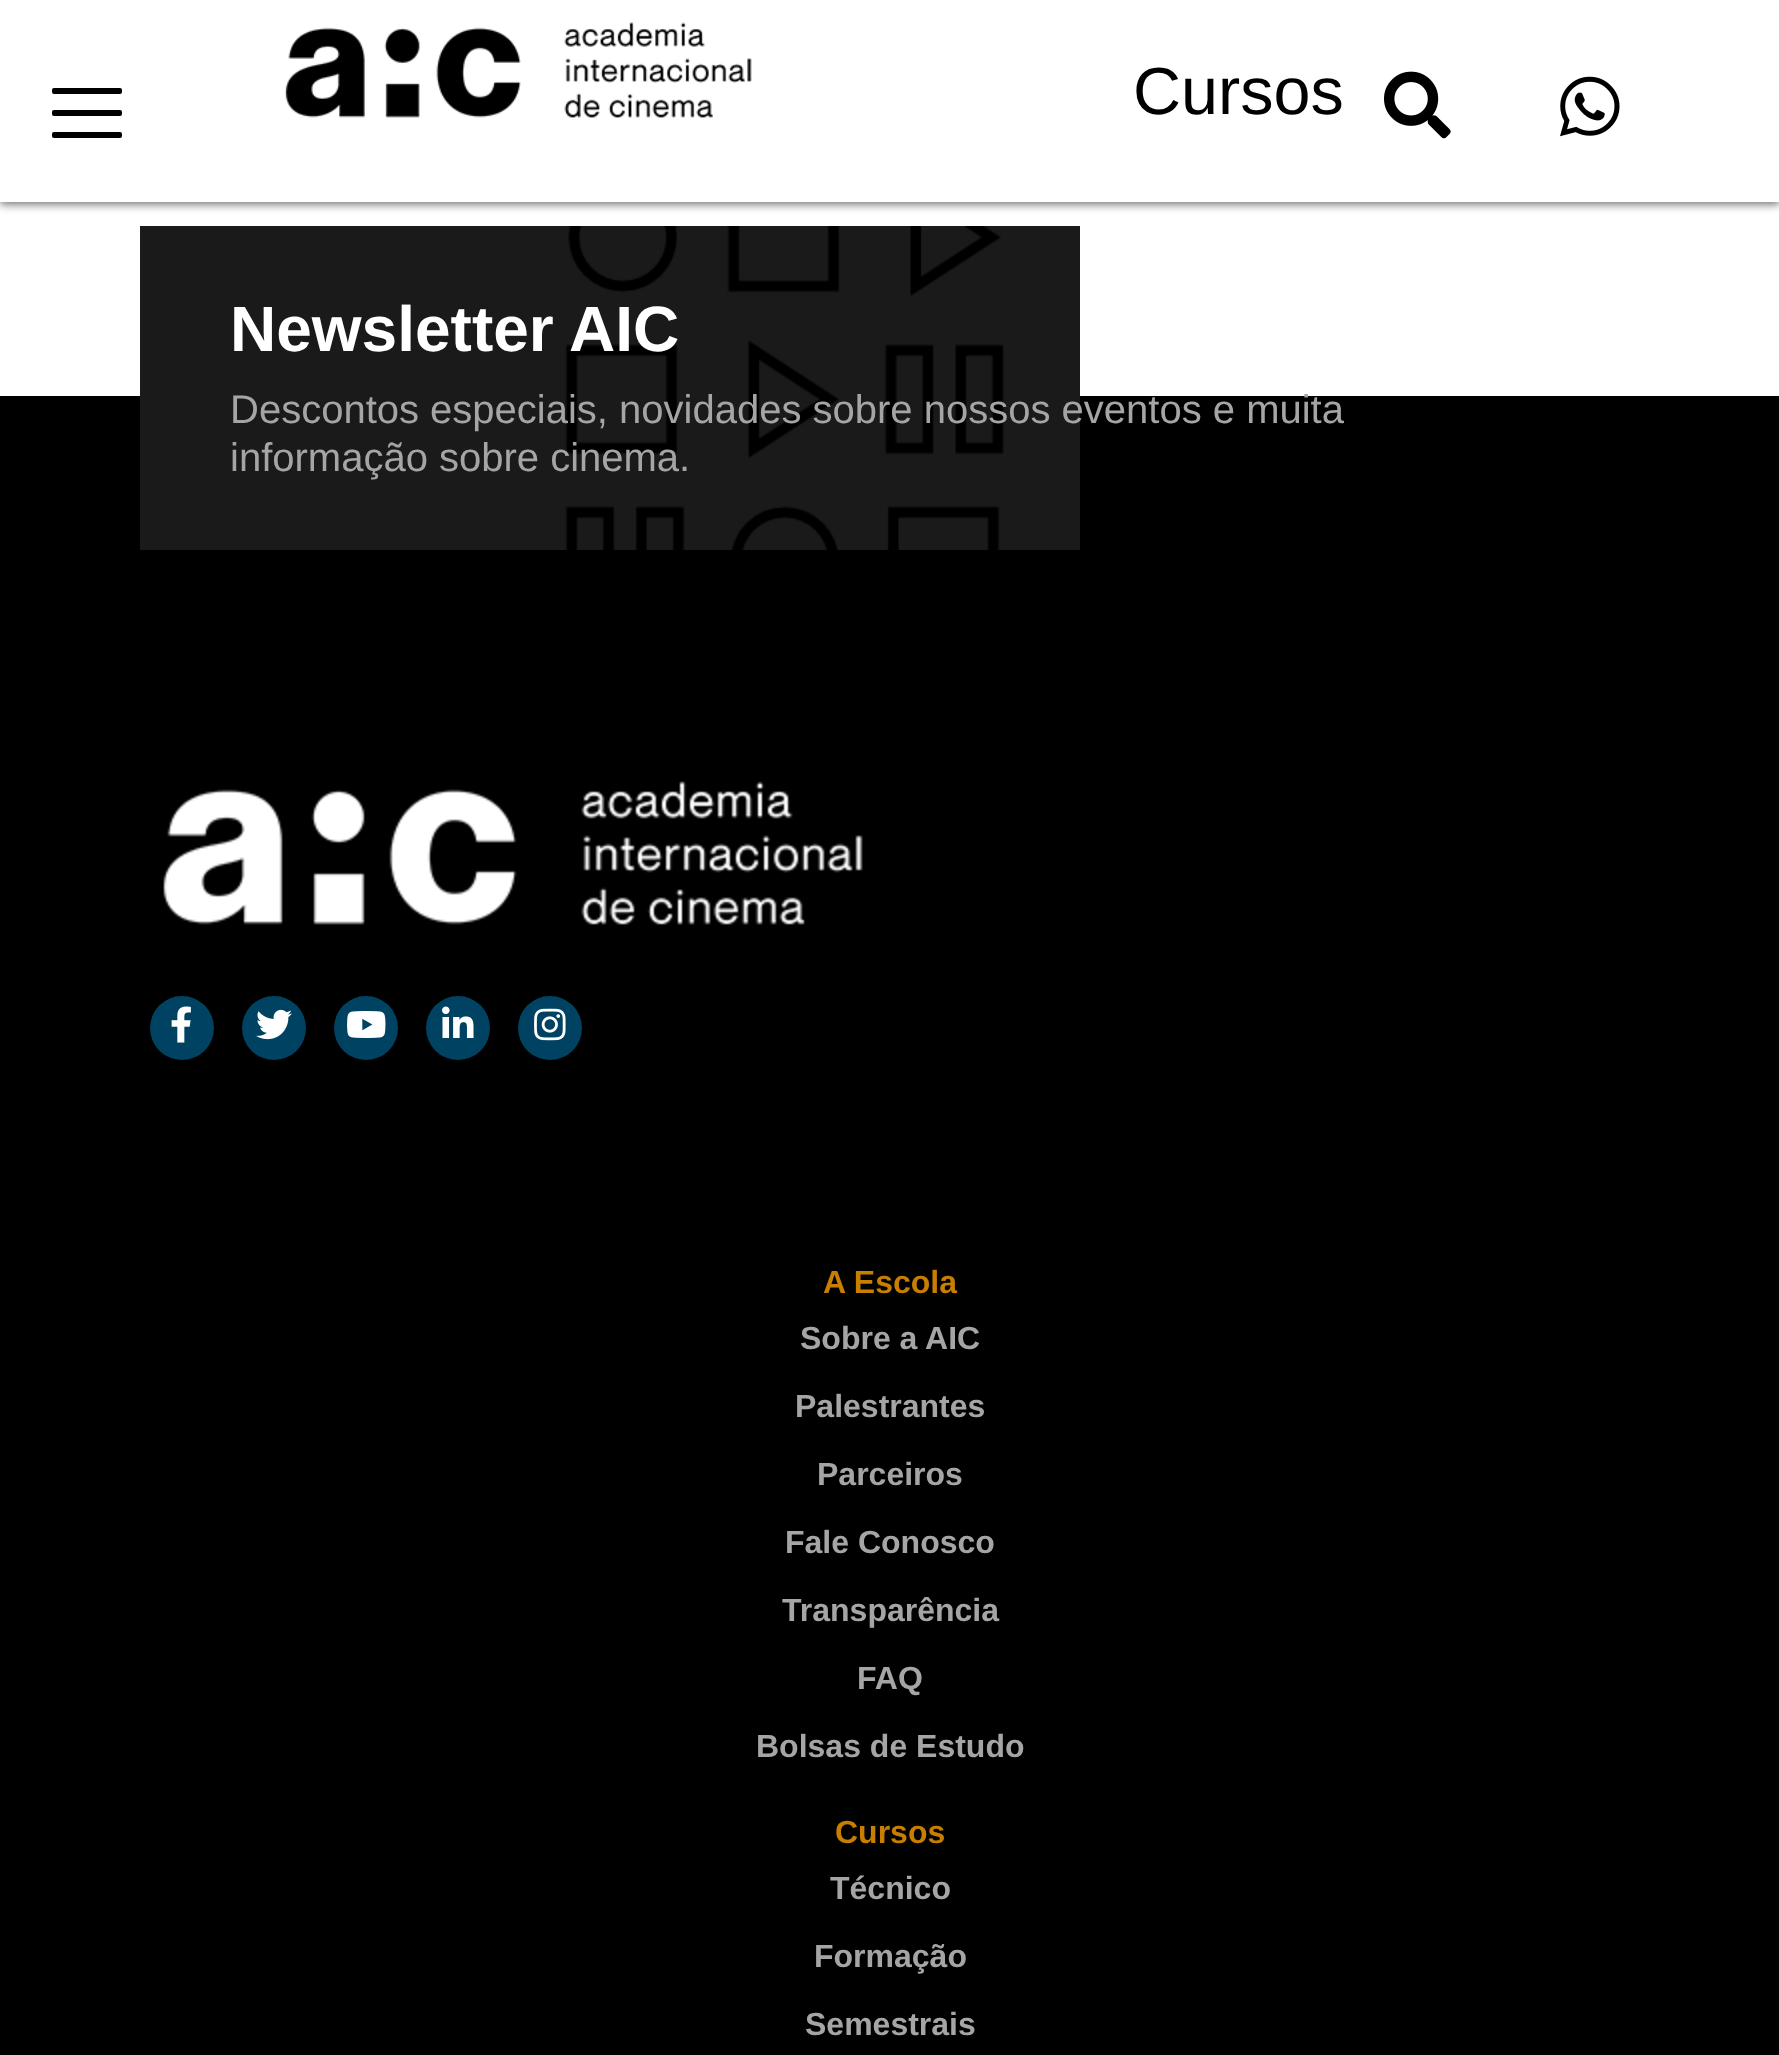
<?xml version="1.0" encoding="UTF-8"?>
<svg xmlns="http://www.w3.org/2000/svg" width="1779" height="2055">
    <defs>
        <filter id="blur1" x="-50%" y="-200%" width="200%" height="500%"><feGaussianBlur stdDeviation="5"/></filter>
    </defs>
    <rect width="100%" height="100%" fill="#000000"/>
    <rect x="0" y="202" width="1779" height="194" fill="#FFFFFF"/>
    <rect x="0" y="2" width="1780" height="202" fill="#000000" fill-opacity="0.6" filter="url(#blur1)"/>
    <rect x="0" y="0" width="1779" height="202" fill="#FFFFFF"/>
    <rect x="52" y="88" width="70" height="6" rx="2" fill="#000000"/>
    <rect x="52" y="110" width="70" height="6" rx="2" fill="#000000"/>
    <rect x="52" y="132" width="70" height="6" rx="2" fill="#000000"/>
    <image x="285" y="22" width="467" height="96" href="img_01.png"/>
    <text x="1133" y="114" font-family="Liberation Sans" font-size="66.5" fill="#000000">Cursos</text>
    <image x="1384" y="71" width="67" height="68" href="img_02.png"/>
    <image x="1560" y="76" width="60" height="61" href="img_03.png"/>
    <image x="140" y="226" width="940" height="324" href="img_04.png"/>
    <text x="230" y="351" font-family="Liberation Sans" font-size="64" font-weight="700" fill="#FFFFFF">Newsletter AIC</text>
    <text font-family="Liberation Sans" font-size="40" fill="#A5A5A5">
        <tspan x="230" y="423">Descontos especiais, novidades sobre nossos eventos e muita</tspan>
        <tspan x="230" y="471">informação sobre cinema.</tspan>
    </text>
    <image x="163" y="781" width="700" height="144" href="img_05.png"/>
    <circle cx="182" cy="1028" r="32" fill="#004261"/>
    <image x="171" y="1006" width="20" height="37" href="img_06.png"/>
    <circle cx="274" cy="1028" r="32" fill="#004261"/>
    <image x="256" y="1009" width="36" height="31" href="img_07.png"/>
    <circle cx="366" cy="1028" r="32" fill="#004261"/>
    <image x="347" y="1011" width="39" height="27" href="img_08.png"/>
    <circle cx="458" cy="1028" r="32" fill="#004261"/>
    <image x="442" y="1006" width="32" height="32" href="img_09.png"/>
    <circle cx="550" cy="1028" r="32" fill="#004261"/>
    <image x="534" y="1008" width="32" height="33" href="img_10.png"/>
    <text x="823" y="1293" font-family="Liberation Sans" font-size="32" font-weight="700" fill="#C87E01">A Escola</text>
    <text x="800" y="1349" font-family="Liberation Sans" font-size="32" font-weight="700" fill="#A5A5A5">Sobre a AIC</text>
    <text x="795" y="1417" font-family="Liberation Sans" font-size="32" font-weight="700" fill="#A5A5A5">Palestrantes</text>
    <text x="817" y="1485" font-family="Liberation Sans" font-size="32" font-weight="700" fill="#A5A5A5">Parceiros</text>
    <text x="785" y="1553" font-family="Liberation Sans" font-size="32" font-weight="700" fill="#A5A5A5">Fale Conosco</text>
    <text x="782" y="1621" font-family="Liberation Sans" font-size="32" font-weight="700" fill="#A5A5A5">Transparência</text>
    <text x="857" y="1689" font-family="Liberation Sans" font-size="32" font-weight="700" fill="#A5A5A5">FAQ</text>
    <text x="756" y="1757" font-family="Liberation Sans" font-size="32" font-weight="700" fill="#A5A5A5">Bolsas de Estudo</text>
    <text x="835" y="1843" font-family="Liberation Sans" font-size="32" font-weight="700" fill="#C87E01">Cursos</text>
    <text x="830" y="1899" font-family="Liberation Sans" font-size="32" font-weight="700" fill="#A5A5A5">Técnico</text>
    <text x="814" y="1967" font-family="Liberation Sans" font-size="32" font-weight="700" fill="#A5A5A5">Formação</text>
    <text x="805" y="2035" font-family="Liberation Sans" font-size="32" font-weight="700" fill="#A5A5A5">Semestrais</text>
</svg>
